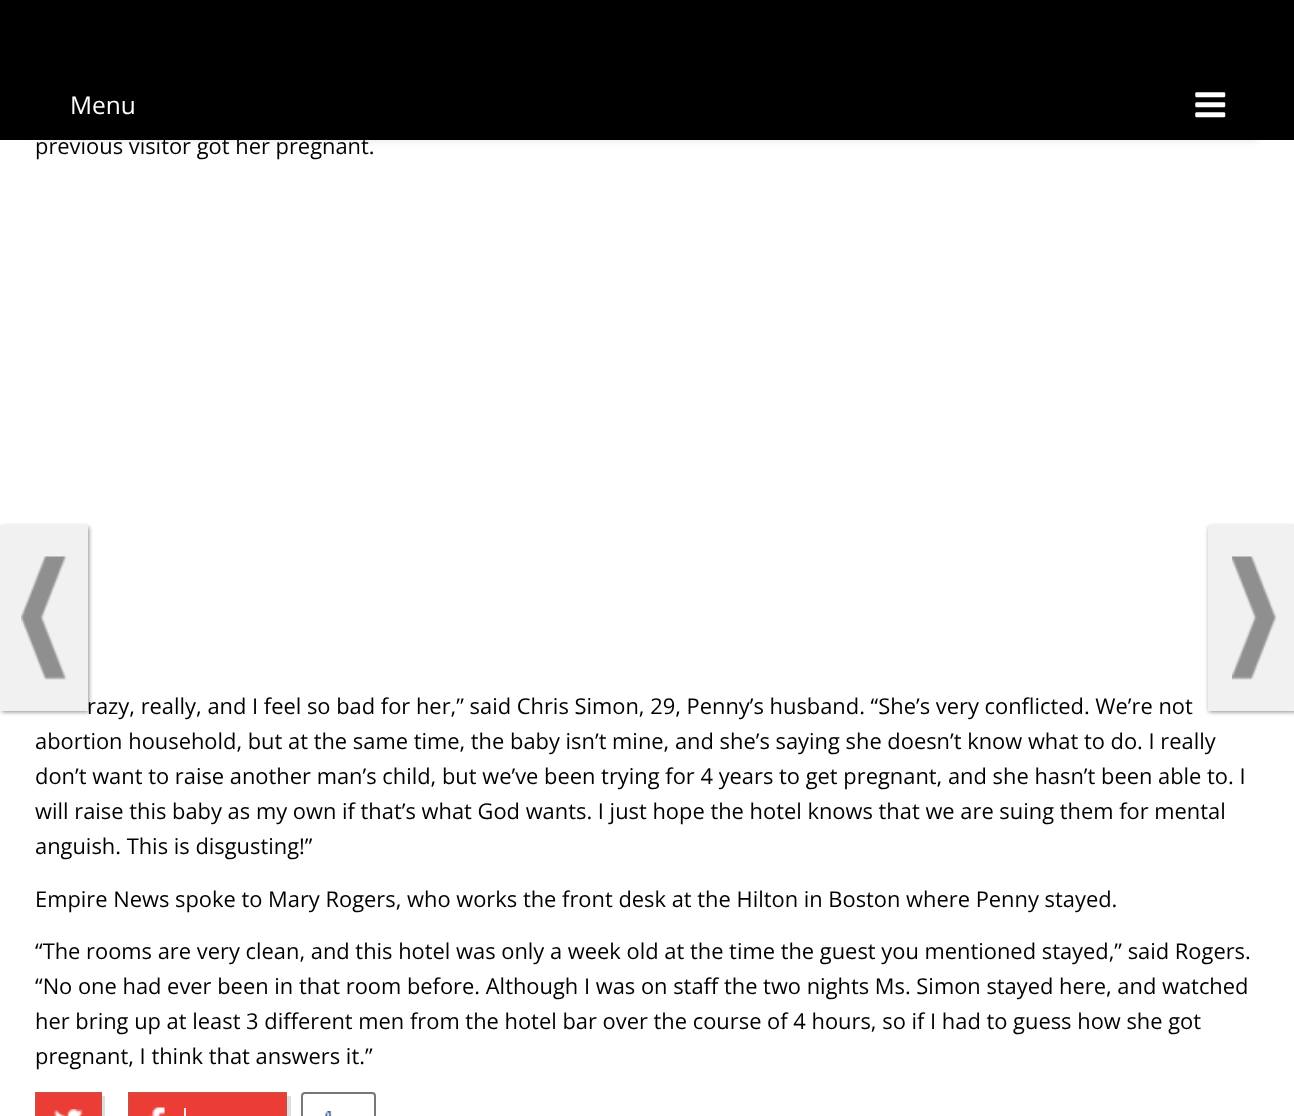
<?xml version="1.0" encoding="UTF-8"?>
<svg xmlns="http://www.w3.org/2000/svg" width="1294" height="1116">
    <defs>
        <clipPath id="clip1"><path d="M 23 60 H 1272 V 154 H 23 Z M 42 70 H 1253 C 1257 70 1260 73 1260 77 V 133 C 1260 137 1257 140 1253 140 H 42 C 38 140 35 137 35 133 V 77 C 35 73 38 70 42 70 Z" clip-rule="evenodd"/></clipPath>
        <filter id="blur1" x="-50%" y="-200%" width="200%" height="500%"><feGaussianBlur stdDeviation="3.5"/></filter>
        <clipPath id="clip2"><path d="M 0 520 H 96 V 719 H 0 Z M 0 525 H 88 V 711 H 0 Z" clip-rule="evenodd"/></clipPath>
        <filter id="blur2" x="-50%" y="-200%" width="200%" height="500%"><feGaussianBlur stdDeviation="2"/></filter>
        <clipPath id="clip3"><path d="M 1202 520 H 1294 V 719 H 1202 Z M 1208 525 H 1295 V 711 H 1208 Z" clip-rule="evenodd"/></clipPath>
    </defs>
    <rect width="100%" height="100%" fill="#FFFFFF"/>
    <rect x="0" y="0" width="1294" height="140" fill="#000000"/>
    <g clip-path="url(#clip1)">
        <rect x="35" y="72" width="1225" height="70" rx="7" fill="#000000" fill-opacity="0.07" filter="url(#blur1)"/>
    </g>
    <text x="70" y="114" font-family="Open Sans" font-size="24.5" fill="#FFFFFF">Menu</text>
    <image x="1195" y="92" width="31" height="26" href="img_01.png"/>
    <text x="35" y="154" font-family="Open Sans" font-size="21.88" fill="#000000">previous visitor got her pregnant.</text>
    <text x="87" y="714" font-family="Open Sans" font-size="21.88" fill="#000000">razy, really, and I feel so bad for her,” said Chris Simon, 29, Penny’s husband. “She’s very conflicted. We’re not</text>
    <text font-family="Open Sans" font-size="21.88" fill="#000000">
        <tspan x="35" y="749">abortion household, but at the same time, the baby isn’t mine, and she’s saying she doesn’t know what to do. I really</tspan>
        <tspan x="35" y="784">don’t want to raise another man’s child, but we’ve been trying for 4 years to get pregnant, and she hasn’t been able to. I</tspan>
        <tspan x="35" y="819">will raise this baby as my own if that’s what God wants. I just hope the hotel knows that we are suing them for mental</tspan>
        <tspan x="35" y="854">anguish. This is disgusting!”</tspan>
    </text>
    <text x="35" y="907" font-family="Open Sans" font-size="21.88" fill="#000000">Empire News spoke to Mary Rogers, who works the front desk at the Hilton in Boston where Penny stayed.</text>
    <text font-family="Open Sans" font-size="21.88" fill="#000000">
        <tspan x="35" y="959">“The rooms are very clean, and this hotel was only a week old at the time the guest you mentioned stayed,” said Rogers.</tspan>
        <tspan x="35" y="994">“No one had ever been in that room before. Although I was on staff the two nights Ms. Simon stayed here, and watched</tspan>
        <tspan x="35" y="1029">her bring up at least 3 different men from the hotel bar over the course of 4 hours, so if I had to guess how she got</tspan>
        <tspan x="35" y="1064">pregnant, I think that answers it.”</tspan>
    </text>
    <path d="M 39 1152 V 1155 H 105 V 1096 H 102 V 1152 Z" fill="#DEDEDE"/>
    <rect x="37" y="1094" width="63" height="22" fill="#EB3D35"/>
    <image x="54" y="1109" width="29" height="7" href="img_02.png"/>
    <rect x="36" y="1093" width="65" height="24" fill="none" stroke="#CF4B44" stroke-width="2"/>
    <path d="M 131 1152 V 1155 H 291 V 1096 H 287 V 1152 Z" fill="#DEDEDE"/>
    <rect x="130" y="1094" width="155" height="22" fill="#EB3D35"/>
    <image x="148" y="1107" width="17" height="9" href="img_03.png"/>
    <rect x="129" y="1093" width="157" height="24" fill="none" stroke="#CF4B44" stroke-width="2"/>
    <rect x="184" y="1108" width="2" height="8" fill="#EDEDED"/>
    <image x="324" y="1111" width="8" height="5" href="img_04.png"/>
    <rect x="302" y="1093" width="73" height="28" rx="3" fill="none" stroke="#777777" stroke-width="2"/>
    <g clip-path="url(#clip2)">
        <rect x="2" y="527" width="87" height="185" fill="#000000" fill-opacity="0.45" filter="url(#blur2)"/>
    </g>
    <rect x="0" y="525" width="88" height="186" fill="#F0F0F0" fill-opacity="0.9"/>
    <image x="21" y="556" width="46" height="124" href="img_05.png"/>
    <g clip-path="url(#clip3)">
        <rect x="1209" y="527" width="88" height="185" fill="#000000" fill-opacity="0.45" filter="url(#blur2)"/>
    </g>
    <rect x="1208" y="525" width="86" height="186" fill="#F0F0F0" fill-opacity="0.9"/>
    <image x="1232" y="556" width="45" height="124" href="img_06.png"/>
</svg>
